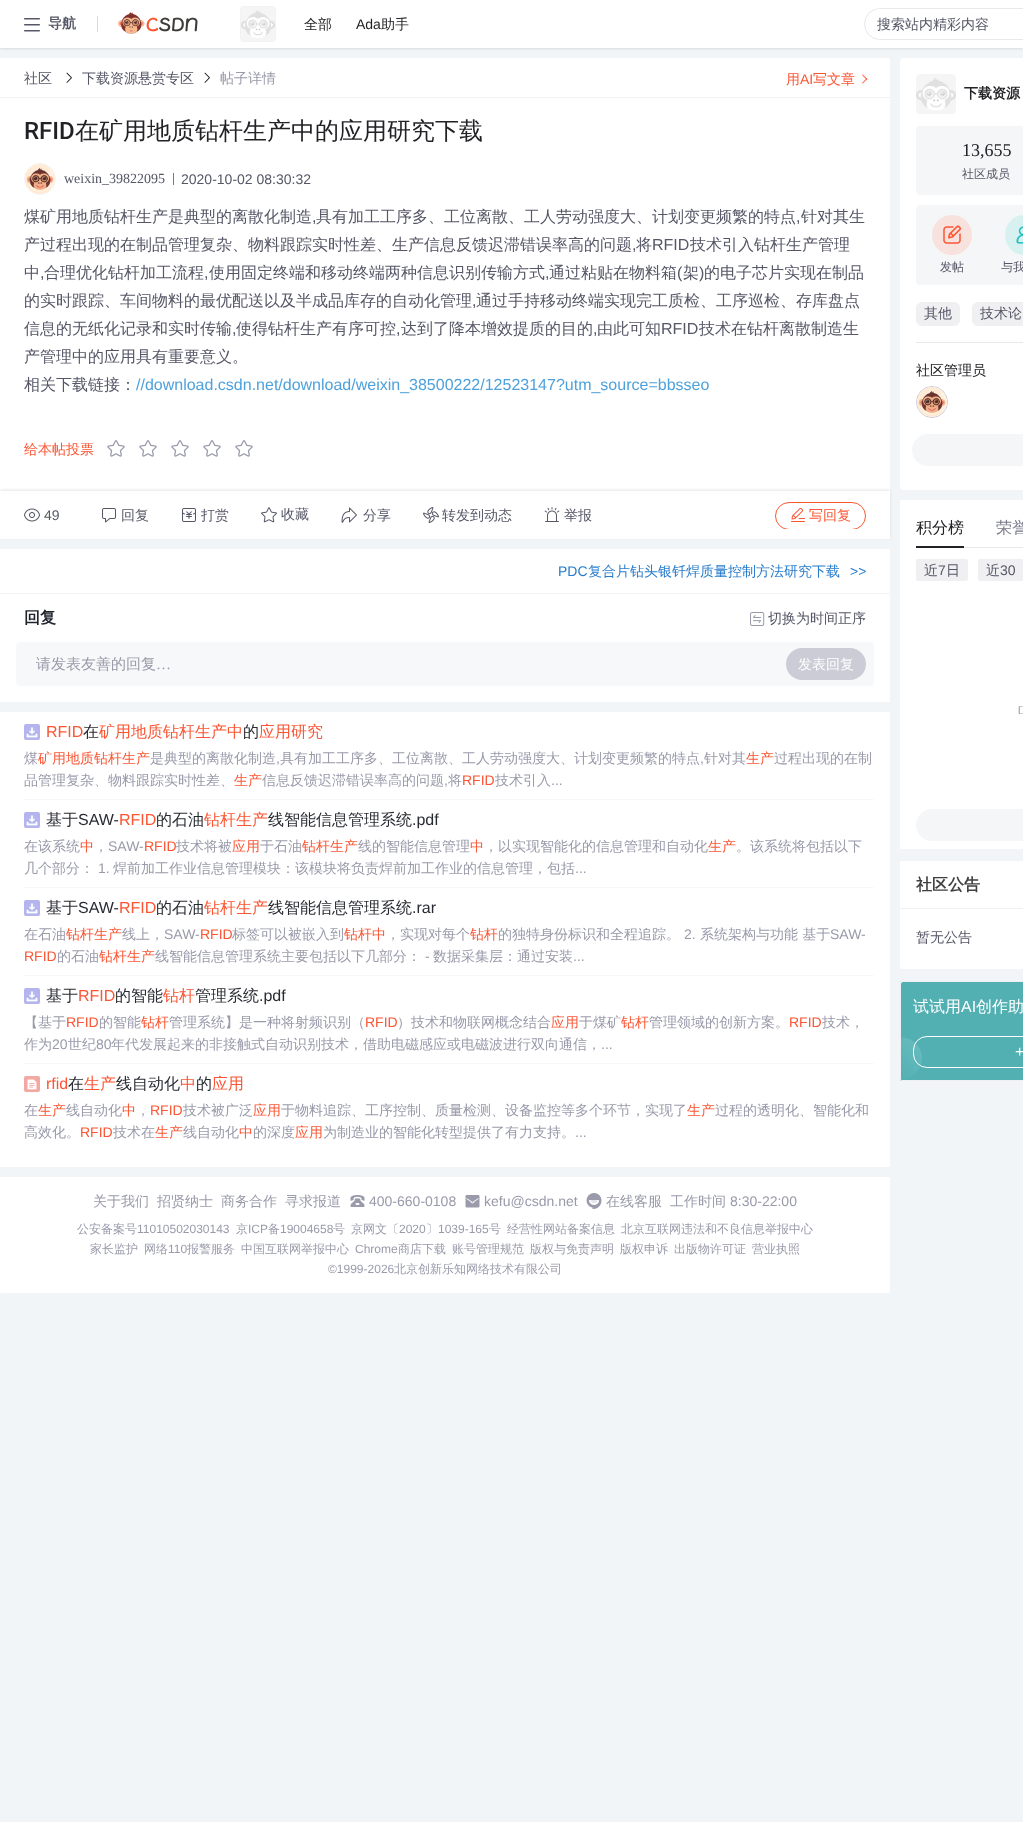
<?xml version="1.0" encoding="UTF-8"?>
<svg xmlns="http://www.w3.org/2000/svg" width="1023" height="1822">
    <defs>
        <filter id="blur1" x="-50%" y="-200%" width="200%" height="500%"><feGaussianBlur stdDeviation="1"/></filter>
        <clipPath id="clip1"><rect x="865" y="9" width="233" height="30" rx="15"/></clipPath>
        <filter id="blur2" x="-50%" y="-200%" width="200%" height="500%"><feGaussianBlur stdDeviation="1.5"/></filter>
        <clipPath id="clip2"><rect x="0" y="501" width="890" height="28"/></clipPath>
    </defs>
    <rect width="100%" height="100%" fill="#F2F5F7"/>
    <rect x="0" y="1" width="1023" height="48" fill="#000000" fill-opacity="0.1" filter="url(#blur1)"/>
    <rect x="0" y="0" width="1023" height="48" fill="#FFFFFF"/>
    <image x="24" y="18" width="16" height="14" href="img_01.png"/>
    <text x="48" y="28" font-family="WenQuanYi Zen Hei" font-size="14" font-weight="700" fill="#555666">导航</text>
    <rect x="97" y="16" width="1" height="16" rx="0.5" fill="#D8D8D8"/>
    <image x="118" y="12" width="80" height="22" href="img_02.png"/>
    <rect x="240.5" y="6.5" width="35" height="35" rx="3.5" fill="none" stroke="#F2F2F2"/>
    <image x="241" y="7" width="34" height="34" href="img_03.png"/>
    <text x="304" y="29" font-family="WenQuanYi Zen Hei" font-size="14" font-weight="500" fill="#222226">全部</text>
    <text x="356" y="29" font-family="Liberation Sans" font-size="14" fill="#222226">Ada</text>
    <text x="381" y="29" font-family="WenQuanYi Zen Hei" font-size="14" font-weight="500" fill="#222226">助手</text>
    <rect x="864.5" y="8.5" width="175" height="31" rx="15.5" fill="none" stroke="#E8E8ED"/>
    <g clip-path="url(#clip1)">
        <rect x="877" y="9" width="146" height="30" fill="#FFFFFF"/>
    </g>
    <text x="877" y="29" font-family="WenQuanYi Zen Hei" font-size="14" font-weight="500" fill="#555666">搜索站内精彩内容</text>
    <path d="M 2 58 H 888 C 889 58 890 59 890 60 V 98 H 0 V 60 C 0 59 1 58 2 58 Z" fill="#FFFFFF"/>
    <rect x="0" y="97" width="890" height="1" fill="#F2F2F2"/>
    <text x="24" y="83" font-family="WenQuanYi Zen Hei" font-size="14" font-weight="500" fill="#555666">社区</text>
    <image x="66" y="72" width="6" height="11" href="img_04.png"/>
    <text x="82" y="83" font-family="WenQuanYi Zen Hei" font-size="14" font-weight="500" fill="#555666">下载资源悬赏专区</text>
    <image x="204" y="72" width="6" height="11" href="img_04.png"/>
    <text x="220" y="83" font-family="WenQuanYi Zen Hei" font-size="14" font-weight="500" fill="#999AAA">帖子详情</text>
    <text x="786" y="84" font-family="WenQuanYi Zen Hei" font-size="14" font-weight="500" fill="#FC5533">用</text>
    <text x="800" y="84" font-family="Liberation Sans" font-size="14" fill="#FC5533">AI</text>
    <text x="813" y="84" font-family="WenQuanYi Zen Hei" font-size="14" font-weight="500" fill="#FC5533">写文章</text>
    <path d="M 862 75 L 862.5 74.5 L 867.5 79 L 866.5 79.5 Z" fill="#FC5531"/>
    <path d="M 862 83 L 866.5 78.5 L 867.5 79 L 862.5 83.5 Z" fill="#FC5531"/>
    <rect x="0" y="98" width="890" height="393" fill="#FFFFFF"/>
    <text x="24" y="139" font-family="Roboto" font-size="24" font-weight="500" fill="#222226">RFID</text>
    <text x="75" y="139" font-family="WenQuanYi Zen Hei" font-size="24" font-weight="500" fill="#222226">在矿用地质钻杆生产中的应用研究下载</text>
    <circle cx="40" cy="179" r="15.5" fill="none" stroke="#F2F2F2"/>
    <image x="25" y="164" width="30" height="30" href="img_05.png"/>
    <text x="64" y="183" font-family="Liberation Serif" font-size="14" fill="#555666">weixin_39822095</text>
    <rect x="173" y="173" width="1" height="12" fill="#777888"/>
    <text x="181" y="184" font-family="Liberation Sans" font-size="14" fill="#555666">2020-10-02 08:30:32</text>
    <text x="24" y="222" font-family="WenQuanYi Zen Hei" font-size="16" font-weight="500" fill="#555666">煤矿用地质钻杆生产是典型的离散化制造</text>
    <text x="312" y="222" font-family="Liberation Sans" font-size="16" fill="#555666">,</text>
    <text x="316" y="222" font-family="WenQuanYi Zen Hei" font-size="16" font-weight="500" fill="#555666">具有加工工序多、工位离散、工人劳动强度大、计划变更频繁的特点</text>
    <text x="796" y="222" font-family="Liberation Sans" font-size="16" fill="#555666">,</text>
    <text x="801" y="222" font-family="WenQuanYi Zen Hei" font-size="16" font-weight="500" fill="#555666">针对其生</text>
    <text x="24" y="250" font-family="WenQuanYi Zen Hei" font-size="16" font-weight="500" fill="#555666">产过程出现的在制品管理复杂、物料跟踪实时性差、生产信息反馈迟滞错误率高的问题</text>
    <text x="636" y="250" font-family="WenQuanYi Zen Hei" font-size="16" font-weight="500" fill="#555666">将</text>
    <text x="652" y="250" font-family="Liberation Sans" font-size="16" fill="#555666">RFID</text>
    <text x="690" y="250" font-family="WenQuanYi Zen Hei" font-size="16" font-weight="500" fill="#555666">技术引入钻杆生产管理</text>
    <text x="632" y="250" font-family="Liberation Sans" font-size="16" fill="#555666">,</text>
    <text x="24" y="278" font-family="WenQuanYi Zen Hei" font-size="16" font-weight="500" fill="#555666">中</text>
    <text x="40" y="278" font-family="Liberation Sans" font-size="16" fill="#555666">,</text>
    <text x="44" y="278" font-family="WenQuanYi Zen Hei" font-size="16" font-weight="500" fill="#555666">合理优化钻杆加工流程</text>
    <text x="204" y="278" font-family="Liberation Sans" font-size="16" fill="#555666">,</text>
    <text x="209" y="278" font-family="WenQuanYi Zen Hei" font-size="16" font-weight="500" fill="#555666">使用固定终端和移动终端两种信息识别传输方式</text>
    <text x="545" y="278" font-family="Liberation Sans" font-size="16" fill="#555666">,</text>
    <text x="549" y="278" font-family="WenQuanYi Zen Hei" font-size="16" font-weight="500" fill="#555666">通过粘贴在物料箱</text>
    <text x="677" y="278" font-family="Liberation Sans" font-size="16" fill="#555666">(</text>
    <text x="683" y="278" font-family="WenQuanYi Zen Hei" font-size="16" font-weight="500" fill="#555666">架</text>
    <text x="699" y="278" font-family="Liberation Sans" font-size="16" fill="#555666">)</text>
    <text x="704" y="278" font-family="WenQuanYi Zen Hei" font-size="16" font-weight="500" fill="#555666">的电子芯片实现在制品</text>
    <text x="24" y="306" font-family="WenQuanYi Zen Hei" font-size="16" font-weight="500" fill="#555666">的实时跟踪、车间物料的最优配送以及半成品库存的自动化管理</text>
    <text x="472" y="306" font-family="Liberation Sans" font-size="16" fill="#555666">,</text>
    <text x="476" y="306" font-family="WenQuanYi Zen Hei" font-size="16" font-weight="500" fill="#555666">通过手持移动终端实现完工质检、工序巡检、存库盘点</text>
    <text x="24" y="334" font-family="WenQuanYi Zen Hei" font-size="16" font-weight="500" fill="#555666">信息的无纸化记录和实时传输</text>
    <text x="236" y="334" font-family="WenQuanYi Zen Hei" font-size="16" font-weight="500" fill="#555666">使得钻杆生产有序可控</text>
    <text x="401" y="334" font-family="WenQuanYi Zen Hei" font-size="16" font-weight="500" fill="#555666">达到了降本增效提质的目的</text>
    <text x="597" y="334" font-family="WenQuanYi Zen Hei" font-size="16" font-weight="500" fill="#555666">由此可知</text>
    <text x="661" y="334" font-family="Liberation Sans" font-size="16" fill="#555666">RFID</text>
    <text x="699" y="334" font-family="WenQuanYi Zen Hei" font-size="16" font-weight="500" fill="#555666">技术在钻杆离散制造生</text>
    <text x="232" y="334" font-family="Liberation Sans" font-size="16" fill="#555666">,</text>
    <text x="396" y="334" font-family="Liberation Sans" font-size="16" fill="#555666">,</text>
    <text x="593" y="334" font-family="Liberation Sans" font-size="16" fill="#555666">,</text>
    <text font-family="WenQuanYi Zen Hei" font-size="16" font-weight="500" fill="#555666">
        <tspan x="24" y="362">产管理中的应用具有重要意义。</tspan>
        <tspan x="24" y="390">相关下载链接：</tspan>
    </text>
    <text x="136" y="390" font-family="Liberation Sans" font-size="16" fill="#4EA1DB">//download.csdn.net/download/weixin_38500222/12523147?utm_source=bbsseo</text>
    <text x="24" y="454" font-family="WenQuanYi Zen Hei" font-size="14" font-weight="500" fill="#FC5533">给本帖投票</text>
    <image x="107" y="440" width="18" height="17" href="img_06.png"/>
    <image x="139" y="440" width="18" height="17" href="img_06.png"/>
    <image x="171" y="440" width="18" height="17" href="img_06.png"/>
    <image x="203" y="440" width="18" height="17" href="img_06.png"/>
    <image x="235" y="440" width="18" height="17" href="img_06.png"/>
    <rect x="0" y="490" width="890" height="48" fill="#121212" fill-opacity="0.1" filter="url(#blur2)"/>
    <rect x="0" y="491" width="890" height="48" fill="#FFFFFF"/>
    <image x="24" y="508" width="16" height="14" href="img_07.png"/>
    <text x="44" y="520" font-family="Liberation Sans" font-size="14" fill="#555666">49</text>
    <image x="102" y="508" width="14" height="15" href="img_08.png"/>
    <text x="121" y="520" font-family="WenQuanYi Zen Hei" font-size="14" font-weight="500" fill="#555666">回复</text>
    <image x="182" y="508" width="14" height="14" href="img_09.png"/>
    <text x="201" y="520" font-family="WenQuanYi Zen Hei" font-size="14" font-weight="500" fill="#555666">打赏</text>
    <image x="261" y="507" width="16" height="16" href="img_10.png"/>
    <text x="281" y="519" font-family="WenQuanYi Zen Hei" font-size="14" font-weight="500" fill="#555666">收藏</text>
    <image x="341" y="507" width="16" height="16" href="img_11.png"/>
    <text x="363" y="520" font-family="WenQuanYi Zen Hei" font-size="14" font-weight="500" fill="#555666">分享</text>
    <image x="423" y="507" width="16" height="16" href="img_12.png"/>
    <text x="442" y="520" font-family="WenQuanYi Zen Hei" font-size="14" font-weight="500" fill="#555666">转发到动态</text>
    <image x="544" y="507" width="16" height="15" href="img_13.png"/>
    <text x="564" y="520" font-family="WenQuanYi Zen Hei" font-size="14" font-weight="500" fill="#555666">举报</text>
    <g clip-path="url(#clip2)">
        <rect x="775.5" y="502.5" width="90" height="27" rx="13.5" fill="none" stroke="#FC5531"/>
    </g>
    <image x="791" y="507" width="14" height="15" href="img_14.png"/>
    <text x="809" y="520" font-family="WenQuanYi Zen Hei" font-size="14" font-weight="500" fill="#FC5533">写回复</text>
    <rect x="0" y="549" width="890" height="44" fill="#FFFFFF"/>
    <text x="558" y="576" font-family="Liberation Sans" font-size="14" fill="#277CCC">PDC</text>
    <text x="588" y="576" font-family="WenQuanYi Zen Hei" font-size="14" font-weight="500" fill="#277CCC">复合片钻头银钎焊质量控制方法研究下载</text>
    <text x="850" y="576" font-family="Liberation Sans" font-size="14" fill="#277CCC">&gt;&gt;</text>
    <rect x="0" y="594" width="890" height="108" fill="#FFFFFF"/>
    <text x="24" y="623" font-family="WenQuanYi Zen Hei" font-size="16" font-weight="700" fill="#20232C">回复</text>
    <image x="750" y="612" width="15" height="14" href="img_15.png"/>
    <text x="768" y="623" font-family="WenQuanYi Zen Hei" font-size="14" font-weight="500" fill="#555666">切换为时间正序</text>
    <rect x="16" y="642" width="858" height="44" rx="4" fill="#F7F8F9"/>
    <text x="36" y="669" font-family="WenQuanYi Zen Hei" font-size="15" font-weight="500" fill="#999AAA">请发表友善的回复</text>
    <text x="156" y="669" font-family="Liberation Serif" font-size="15" fill="#999AAA">…</text>
    <rect x="786" y="648" width="80" height="32" rx="16" fill="#CCCCD7"/>
    <text x="798" y="669" font-family="WenQuanYi Zen Hei" font-size="14" font-weight="500" fill="#FFFFFF">发表回复</text>
    <rect x="0" y="712" width="890" height="455" fill="#FFFFFF"/>
    <rect x="24" y="799" width="850" height="1" fill="#F7F7FC"/>
    <image x="24" y="724" width="16" height="16" href="img_16.png"/>
    <text x="46" y="737" font-family="Liberation Sans" font-size="16" fill="#FC5533">RFID</text>
    <text x="83" y="737" font-family="WenQuanYi Zen Hei" font-size="16" font-weight="500" fill="#282B31">在</text>
    <text x="99" y="737" font-family="WenQuanYi Zen Hei" font-size="16" font-weight="500" fill="#FC5533">矿用地质钻杆生产中</text>
    <text x="243" y="737" font-family="WenQuanYi Zen Hei" font-size="16" font-weight="500" fill="#282B31">的</text>
    <text x="259" y="737" font-family="WenQuanYi Zen Hei" font-size="16" font-weight="500" fill="#FC5533">应用研究</text>
    <text x="24" y="763" font-family="WenQuanYi Zen Hei" font-size="14" font-weight="500" fill="#999AAA">煤</text>
    <text x="38" y="763" font-family="WenQuanYi Zen Hei" font-size="14" font-weight="500" fill="#FC5533">矿用地质钻杆生产</text>
    <text x="150" y="763" font-family="WenQuanYi Zen Hei" font-size="14" font-weight="500" fill="#999AAA">是典型的离散化制造</text>
    <text x="276" y="763" font-family="Liberation Sans" font-size="14" fill="#999AAA">,</text>
    <text x="280" y="763" font-family="WenQuanYi Zen Hei" font-size="14" font-weight="500" fill="#999AAA">具有加工工序多、工位离散、工人劳动强度大、计划变更频繁的特点</text>
    <text x="700" y="763" font-family="Liberation Sans" font-size="14" fill="#999AAA">,</text>
    <text x="704" y="763" font-family="WenQuanYi Zen Hei" font-size="14" font-weight="500" fill="#999AAA">针对其</text>
    <text x="746" y="763" font-family="WenQuanYi Zen Hei" font-size="14" font-weight="500" fill="#FC5533">生产</text>
    <text x="774" y="763" font-family="WenQuanYi Zen Hei" font-size="14" font-weight="500" fill="#999AAA">过程出现的在制</text>
    <text x="24" y="785" font-family="WenQuanYi Zen Hei" font-size="14" font-weight="500" fill="#999AAA">品管理复杂、物料跟踪实时性差、</text>
    <text x="234" y="785" font-family="WenQuanYi Zen Hei" font-size="14" font-weight="500" fill="#FC5533">生产</text>
    <text x="262" y="785" font-family="WenQuanYi Zen Hei" font-size="14" font-weight="500" fill="#999AAA">信息反馈迟滞错误率高的问题</text>
    <text x="444" y="785" font-family="Liberation Sans" font-size="14" fill="#999AAA">,</text>
    <text x="448" y="785" font-family="WenQuanYi Zen Hei" font-size="14" font-weight="500" fill="#999AAA">将</text>
    <text x="462" y="785" font-family="Liberation Sans" font-size="14" fill="#FC5533">RFID</text>
    <text x="495" y="785" font-family="WenQuanYi Zen Hei" font-size="14" font-weight="500" fill="#999AAA">技术引入</text>
    <text x="551" y="785" font-family="Liberation Sans" font-size="14" fill="#999AAA">...</text>
    <rect x="24" y="887" width="850" height="1" fill="#F7F7FC"/>
    <image x="24" y="812" width="16" height="16" href="img_16.png"/>
    <text x="46" y="825" font-family="WenQuanYi Zen Hei" font-size="16" font-weight="500" fill="#282B31">基于</text>
    <text x="78" y="825" font-family="Liberation Sans" font-size="16" fill="#282B31">SAW-</text>
    <text x="119" y="825" font-family="Liberation Sans" font-size="16" fill="#FC5533">RFID</text>
    <text x="156" y="825" font-family="WenQuanYi Zen Hei" font-size="16" font-weight="500" fill="#282B31">的石油</text>
    <text x="204" y="825" font-family="WenQuanYi Zen Hei" font-size="16" font-weight="500" fill="#FC5533">钻杆生产</text>
    <text x="268" y="825" font-family="WenQuanYi Zen Hei" font-size="16" font-weight="500" fill="#282B31">线智能信息管理系统</text>
    <text x="412" y="825" font-family="Liberation Sans" font-size="16" fill="#282B31">.pdf</text>
    <text x="24" y="851" font-family="WenQuanYi Zen Hei" font-size="14" font-weight="500" fill="#999AAA">在该系统</text>
    <text x="80" y="851" font-family="WenQuanYi Zen Hei" font-size="14" font-weight="500" fill="#FC5533">中</text>
    <text x="94" y="851" font-family="WenQuanYi Zen Hei" font-size="14" font-weight="500" fill="#999AAA">，</text>
    <text x="108" y="851" font-family="Liberation Sans" font-size="14" fill="#999AAA">SAW-</text>
    <text x="144" y="851" font-family="Liberation Sans" font-size="14" fill="#FC5533">RFID</text>
    <text x="176" y="851" font-family="WenQuanYi Zen Hei" font-size="14" font-weight="500" fill="#999AAA">技术将被</text>
    <text x="232" y="851" font-family="WenQuanYi Zen Hei" font-size="14" font-weight="500" fill="#FC5533">应用</text>
    <text x="260" y="851" font-family="WenQuanYi Zen Hei" font-size="14" font-weight="500" fill="#999AAA">于石油</text>
    <text x="302" y="851" font-family="WenQuanYi Zen Hei" font-size="14" font-weight="500" fill="#FC5533">钻杆生产</text>
    <text x="358" y="851" font-family="WenQuanYi Zen Hei" font-size="14" font-weight="500" fill="#999AAA">线的智能信息管理</text>
    <text x="470" y="851" font-family="WenQuanYi Zen Hei" font-size="14" font-weight="500" fill="#FC5533">中</text>
    <text x="484" y="851" font-family="WenQuanYi Zen Hei" font-size="14" font-weight="500" fill="#999AAA">，以实现智能化的信息管理和自动化</text>
    <text x="708" y="851" font-family="WenQuanYi Zen Hei" font-size="14" font-weight="500" fill="#FC5533">生产</text>
    <text x="736" y="851" font-family="WenQuanYi Zen Hei" font-size="14" font-weight="500" fill="#999AAA">。该系统将包括以下</text>
    <text x="24" y="873" font-family="WenQuanYi Zen Hei" font-size="14" font-weight="500" fill="#999AAA">几个部分：</text>
    <text x="98" y="873" font-family="Liberation Sans" font-size="14" fill="#999AAA">1.</text>
    <text x="113" y="873" font-family="WenQuanYi Zen Hei" font-size="14" font-weight="500" fill="#999AAA">焊前加工作业信息管理模块：该模块将负责焊前加工作业的信息管理，包括</text>
    <text x="575" y="873" font-family="Liberation Sans" font-size="14" fill="#999AAA">...</text>
    <rect x="24" y="975" width="850" height="1" fill="#F7F7FC"/>
    <image x="24" y="900" width="16" height="16" href="img_16.png"/>
    <text x="46" y="913" font-family="WenQuanYi Zen Hei" font-size="16" font-weight="500" fill="#282B31">基于</text>
    <text x="78" y="913" font-family="Liberation Sans" font-size="16" fill="#282B31">SAW-</text>
    <text x="119" y="913" font-family="Liberation Sans" font-size="16" fill="#FC5533">RFID</text>
    <text x="156" y="913" font-family="WenQuanYi Zen Hei" font-size="16" font-weight="500" fill="#282B31">的石油</text>
    <text x="204" y="913" font-family="WenQuanYi Zen Hei" font-size="16" font-weight="500" fill="#FC5533">钻杆生产</text>
    <text x="268" y="913" font-family="WenQuanYi Zen Hei" font-size="16" font-weight="500" fill="#282B31">线智能信息管理系统</text>
    <text x="412" y="913" font-family="Liberation Sans" font-size="16" fill="#282B31">.rar</text>
    <text x="24" y="939" font-family="WenQuanYi Zen Hei" font-size="14" font-weight="500" fill="#999AAA">在石油</text>
    <text x="66" y="939" font-family="WenQuanYi Zen Hei" font-size="14" font-weight="500" fill="#FC5533">钻杆生产</text>
    <text x="122" y="939" font-family="WenQuanYi Zen Hei" font-size="14" font-weight="500" fill="#999AAA">线上，</text>
    <text x="164" y="939" font-family="Liberation Sans" font-size="14" fill="#999AAA">SAW-</text>
    <text x="200" y="939" font-family="Liberation Sans" font-size="14" fill="#FC5533">RFID</text>
    <text x="232" y="939" font-family="WenQuanYi Zen Hei" font-size="14" font-weight="500" fill="#999AAA">标签可以被嵌入到</text>
    <text x="344" y="939" font-family="WenQuanYi Zen Hei" font-size="14" font-weight="500" fill="#FC5533">钻杆中</text>
    <text x="386" y="939" font-family="WenQuanYi Zen Hei" font-size="14" font-weight="500" fill="#999AAA">，实现对每个</text>
    <text x="470" y="939" font-family="WenQuanYi Zen Hei" font-size="14" font-weight="500" fill="#FC5533">钻杆</text>
    <text x="498" y="939" font-family="WenQuanYi Zen Hei" font-size="14" font-weight="500" fill="#999AAA">的独特身份标识和全程追踪。</text>
    <text x="684" y="939" font-family="Liberation Sans" font-size="14" fill="#999AAA">2.</text>
    <text x="700" y="939" font-family="WenQuanYi Zen Hei" font-size="14" font-weight="500" fill="#999AAA">系统架构与功能 基于</text>
    <text x="830" y="939" font-family="Liberation Sans" font-size="14" fill="#999AAA">SAW-</text>
    <text x="24" y="961" font-family="Liberation Sans" font-size="14" fill="#FC5533">RFID</text>
    <text x="57" y="961" font-family="WenQuanYi Zen Hei" font-size="14" font-weight="500" fill="#999AAA">的石油</text>
    <text x="99" y="961" font-family="WenQuanYi Zen Hei" font-size="14" font-weight="500" fill="#FC5533">钻杆生产</text>
    <text x="155" y="961" font-family="WenQuanYi Zen Hei" font-size="14" font-weight="500" fill="#999AAA">线智能信息管理系统主要包括以下几部分：</text>
    <text x="425" y="961" font-family="Liberation Sans" font-size="14" fill="#999AAA">-</text>
    <text x="433" y="961" font-family="WenQuanYi Zen Hei" font-size="14" font-weight="500" fill="#999AAA">数据采集层：通过安装</text>
    <text x="573" y="961" font-family="Liberation Sans" font-size="14" fill="#999AAA">...</text>
    <rect x="24" y="1063" width="850" height="1" fill="#F7F7FC"/>
    <image x="24" y="988" width="16" height="16" href="img_16.png"/>
    <text x="46" y="1001" font-family="WenQuanYi Zen Hei" font-size="16" font-weight="500" fill="#282B31">基于</text>
    <text x="78" y="1001" font-family="Liberation Sans" font-size="16" fill="#FC5533">RFID</text>
    <text x="115" y="1001" font-family="WenQuanYi Zen Hei" font-size="16" font-weight="500" fill="#282B31">的智能</text>
    <text x="163" y="1001" font-family="WenQuanYi Zen Hei" font-size="16" font-weight="500" fill="#FC5533">钻杆</text>
    <text x="195" y="1001" font-family="WenQuanYi Zen Hei" font-size="16" font-weight="500" fill="#282B31">管理系统</text>
    <text x="259" y="1001" font-family="Liberation Sans" font-size="16" fill="#282B31">.pdf</text>
    <text x="24" y="1027" font-family="WenQuanYi Zen Hei" font-size="14" font-weight="500" fill="#999AAA">【基于</text>
    <text x="66" y="1027" font-family="Liberation Sans" font-size="14" fill="#FC5533">RFID</text>
    <text x="99" y="1027" font-family="WenQuanYi Zen Hei" font-size="14" font-weight="500" fill="#999AAA">的智能</text>
    <text x="141" y="1027" font-family="WenQuanYi Zen Hei" font-size="14" font-weight="500" fill="#FC5533">钻杆</text>
    <text x="169" y="1027" font-family="WenQuanYi Zen Hei" font-size="14" font-weight="500" fill="#999AAA">管理系统】是一种将射频识别（</text>
    <text x="365" y="1027" font-family="Liberation Sans" font-size="14" fill="#FC5533">RFID</text>
    <text x="397" y="1027" font-family="WenQuanYi Zen Hei" font-size="14" font-weight="500" fill="#999AAA">）技术和物联网概念结合</text>
    <text x="551" y="1027" font-family="WenQuanYi Zen Hei" font-size="14" font-weight="500" fill="#FC5533">应用</text>
    <text x="579" y="1027" font-family="WenQuanYi Zen Hei" font-size="14" font-weight="500" fill="#999AAA">于煤矿</text>
    <text x="621" y="1027" font-family="WenQuanYi Zen Hei" font-size="14" font-weight="500" fill="#FC5533">钻杆</text>
    <text x="649" y="1027" font-family="WenQuanYi Zen Hei" font-size="14" font-weight="500" fill="#999AAA">管理领域的创新方案。</text>
    <text x="789" y="1027" font-family="Liberation Sans" font-size="14" fill="#FC5533">RFID</text>
    <text x="822" y="1027" font-family="WenQuanYi Zen Hei" font-size="14" font-weight="500" fill="#999AAA">技术，</text>
    <text x="24" y="1049" font-family="WenQuanYi Zen Hei" font-size="14" font-weight="500" fill="#999AAA">作为</text>
    <text x="52" y="1049" font-family="Liberation Sans" font-size="14" fill="#999AAA">20</text>
    <text x="68" y="1049" font-family="WenQuanYi Zen Hei" font-size="14" font-weight="500" fill="#999AAA">世纪</text>
    <text x="96" y="1049" font-family="Liberation Sans" font-size="14" fill="#999AAA">80</text>
    <text x="111" y="1049" font-family="WenQuanYi Zen Hei" font-size="14" font-weight="500" fill="#999AAA">年代发展起来的非接触式自动识别技术，借助电磁感应或电磁波进行双向通信，</text>
    <text x="601" y="1049" font-family="Liberation Sans" font-size="14" fill="#999AAA">...</text>
    <image x="24" y="1076" width="16" height="16" href="img_17.png"/>
    <text x="46" y="1089" font-family="Liberation Sans" font-size="16" fill="#FC5533">rfid</text>
    <text x="68" y="1089" font-family="WenQuanYi Zen Hei" font-size="16" font-weight="500" fill="#282B31">在</text>
    <text x="84" y="1089" font-family="WenQuanYi Zen Hei" font-size="16" font-weight="500" fill="#FC5533">生产</text>
    <text x="116" y="1089" font-family="WenQuanYi Zen Hei" font-size="16" font-weight="500" fill="#282B31">线自动化</text>
    <text x="180" y="1089" font-family="WenQuanYi Zen Hei" font-size="16" font-weight="500" fill="#FC5533">中</text>
    <text x="196" y="1089" font-family="WenQuanYi Zen Hei" font-size="16" font-weight="500" fill="#282B31">的</text>
    <text x="212" y="1089" font-family="WenQuanYi Zen Hei" font-size="16" font-weight="500" fill="#FC5533">应用</text>
    <text x="24" y="1115" font-family="WenQuanYi Zen Hei" font-size="14" font-weight="500" fill="#999AAA">在</text>
    <text x="38" y="1115" font-family="WenQuanYi Zen Hei" font-size="14" font-weight="500" fill="#FC5533">生产</text>
    <text x="66" y="1115" font-family="WenQuanYi Zen Hei" font-size="14" font-weight="500" fill="#999AAA">线自动化</text>
    <text x="122" y="1115" font-family="WenQuanYi Zen Hei" font-size="14" font-weight="500" fill="#FC5533">中</text>
    <text x="136" y="1115" font-family="WenQuanYi Zen Hei" font-size="14" font-weight="500" fill="#999AAA">，</text>
    <text x="150" y="1115" font-family="Liberation Sans" font-size="14" fill="#FC5533">RFID</text>
    <text x="183" y="1115" font-family="WenQuanYi Zen Hei" font-size="14" font-weight="500" fill="#999AAA">技术被广泛</text>
    <text x="253" y="1115" font-family="WenQuanYi Zen Hei" font-size="14" font-weight="500" fill="#FC5533">应用</text>
    <text x="281" y="1115" font-family="WenQuanYi Zen Hei" font-size="14" font-weight="500" fill="#999AAA">于物料追踪、工序控制、质量检测、设备监控等多个环节，实现了</text>
    <text x="687" y="1115" font-family="WenQuanYi Zen Hei" font-size="14" font-weight="500" fill="#FC5533">生产</text>
    <text x="715" y="1115" font-family="WenQuanYi Zen Hei" font-size="14" font-weight="500" fill="#999AAA">过程的透明化、智能化和</text>
    <text x="24" y="1137" font-family="WenQuanYi Zen Hei" font-size="14" font-weight="500" fill="#999AAA">高效化。</text>
    <text x="80" y="1137" font-family="Liberation Sans" font-size="14" fill="#FC5533">RFID</text>
    <text x="113" y="1137" font-family="WenQuanYi Zen Hei" font-size="14" font-weight="500" fill="#999AAA">技术在</text>
    <text x="155" y="1137" font-family="WenQuanYi Zen Hei" font-size="14" font-weight="500" fill="#FC5533">生产</text>
    <text x="183" y="1137" font-family="WenQuanYi Zen Hei" font-size="14" font-weight="500" fill="#999AAA">线自动化</text>
    <text x="239" y="1137" font-family="WenQuanYi Zen Hei" font-size="14" font-weight="500" fill="#FC5533">中</text>
    <text x="253" y="1137" font-family="WenQuanYi Zen Hei" font-size="14" font-weight="500" fill="#999AAA">的深度</text>
    <text x="295" y="1137" font-family="WenQuanYi Zen Hei" font-size="14" font-weight="500" fill="#FC5533">应用</text>
    <text x="323" y="1137" font-family="WenQuanYi Zen Hei" font-size="14" font-weight="500" fill="#999AAA">为制造业的智能化转型提供了有力支持。</text>
    <text x="575" y="1137" font-family="Liberation Sans" font-size="14" fill="#999AAA">...</text>
    <path d="M 0 1177 H 890 V 1291 C 890 1292 889 1293 888 1293 H 2 C 1 1293 0 1292 0 1291 Z" fill="#FFFFFF"/>
    <text x="93" y="1206" font-family="WenQuanYi Zen Hei" font-size="14" font-weight="500" fill="#999AAA">关于我们</text>
    <text x="157" y="1206" font-family="WenQuanYi Zen Hei" font-size="14" font-weight="500" fill="#999AAA">招贤纳士</text>
    <text x="221" y="1206" font-family="WenQuanYi Zen Hei" font-size="14" font-weight="500" fill="#999AAA">商务合作</text>
    <text x="285" y="1206" font-family="WenQuanYi Zen Hei" font-size="14" font-weight="500" fill="#999AAA">寻求报道</text>
    <image x="350" y="1195" width="15" height="12" href="img_18.png"/>
    <text x="369" y="1206" font-family="Liberation Sans" font-size="14" fill="#999AAA">400-660-0108</text>
    <image x="465" y="1195" width="15" height="13" href="img_19.png"/>
    <text x="484" y="1206" font-family="Liberation Sans" font-size="14" fill="#999AAA">kefu@csdn.net</text>
    <image x="586" y="1193" width="16" height="16" href="img_20.png"/>
    <text x="606" y="1206" font-family="WenQuanYi Zen Hei" font-size="14" font-weight="500" fill="#999AAA">在线客服</text>
    <text x="670" y="1206" font-family="WenQuanYi Zen Hei" font-size="14" font-weight="500" fill="#999AAA">工作时间</text>
    <text x="730" y="1206" font-family="Liberation Sans" font-size="14" fill="#999AAA">8:30-22:00</text>
    <text x="77" y="1233" font-family="WenQuanYi Zen Hei" font-size="12" font-weight="500" fill="#999AAA">公安备案号</text>
    <text x="137" y="1233" font-family="Liberation Sans" font-size="12" fill="#999AAA">11010502030143</text>
    <text x="236" y="1233" font-family="WenQuanYi Zen Hei" font-size="12" font-weight="500" fill="#999AAA">京</text>
    <text x="248" y="1233" font-family="Liberation Sans" font-size="12" fill="#999AAA">ICP</text>
    <text x="268" y="1233" font-family="WenQuanYi Zen Hei" font-size="12" font-weight="500" fill="#999AAA">备</text>
    <text x="280" y="1233" font-family="Liberation Sans" font-size="12" fill="#999AAA">19004658</text>
    <text x="333" y="1233" font-family="WenQuanYi Zen Hei" font-size="12" font-weight="500" fill="#999AAA">号</text>
    <text x="351" y="1233" font-family="WenQuanYi Zen Hei" font-size="12" font-weight="500" fill="#999AAA">京网文〔</text>
    <text x="399" y="1233" font-family="Liberation Sans" font-size="12" fill="#999AAA">2020</text>
    <text x="426" y="1233" font-family="WenQuanYi Zen Hei" font-size="12" font-weight="500" fill="#999AAA">〕</text>
    <text x="438" y="1233" font-family="Liberation Sans" font-size="12" fill="#999AAA">1039-165</text>
    <text x="489" y="1233" font-family="WenQuanYi Zen Hei" font-size="12" font-weight="500" fill="#999AAA">号</text>
    <text x="507" y="1233" font-family="WenQuanYi Zen Hei" font-size="12" font-weight="500" fill="#999AAA">经营性网站备案信息</text>
    <text x="621" y="1233" font-family="WenQuanYi Zen Hei" font-size="12" font-weight="500" fill="#999AAA">北京互联网违法和不良信息举报中心</text>
    <text x="90" y="1253" font-family="WenQuanYi Zen Hei" font-size="12" font-weight="500" fill="#999AAA">家长监护</text>
    <text x="144" y="1253" font-family="WenQuanYi Zen Hei" font-size="12" font-weight="500" fill="#999AAA">网络</text>
    <text x="168" y="1253" font-family="Liberation Sans" font-size="12" fill="#999AAA">110</text>
    <text x="187" y="1253" font-family="WenQuanYi Zen Hei" font-size="12" font-weight="500" fill="#999AAA">报警服务</text>
    <text x="241" y="1253" font-family="WenQuanYi Zen Hei" font-size="12" font-weight="500" fill="#999AAA">中国互联网举报中心</text>
    <text x="355" y="1253" font-family="Liberation Sans" font-size="12" fill="#999AAA">Chrome</text>
    <text x="398" y="1253" font-family="WenQuanYi Zen Hei" font-size="12" font-weight="500" fill="#999AAA">商店下载</text>
    <text x="452" y="1253" font-family="WenQuanYi Zen Hei" font-size="12" font-weight="500" fill="#999AAA">账号管理规范</text>
    <text x="530" y="1253" font-family="WenQuanYi Zen Hei" font-size="12" font-weight="500" fill="#999AAA">版权与免责声明</text>
    <text x="620" y="1253" font-family="WenQuanYi Zen Hei" font-size="12" font-weight="500" fill="#999AAA">版权申诉</text>
    <text x="674" y="1253" font-family="WenQuanYi Zen Hei" font-size="12" font-weight="500" fill="#999AAA">出版物许可证</text>
    <text x="752" y="1253" font-family="WenQuanYi Zen Hei" font-size="12" font-weight="500" fill="#999AAA">营业执照</text>
    <text x="328" y="1273" font-family="Liberation Sans" font-size="12" fill="#999AAA">©1999-2026</text>
    <text x="394" y="1273" font-family="WenQuanYi Zen Hei" font-size="12" font-weight="500" fill="#999AAA">北京创新乐知网络技术有限公司</text>
    <rect x="900" y="58" width="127" height="432" rx="4" fill="#FFFFFF"/>
    <image x="916" y="74" width="40" height="40" href="img_21.png"/>
    <text x="964" y="98" font-family="WenQuanYi Zen Hei" font-size="14" font-weight="700" fill="#222226">下载资源</text>
    <rect x="916" y="126" width="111" height="69" rx="4" fill="#F5F6F7"/>
    <text x="962" y="156" font-family="Liberation Serif" font-size="18" fill="#222226">13,655</text>
    <text x="962" y="178" font-family="WenQuanYi Zen Hei" font-size="12" font-weight="500" fill="#555666">社区成员</text>
    <rect x="916" y="205" width="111" height="80" rx="4" fill="#F5F6F7"/>
    <circle cx="952" cy="235" r="20" fill="#F7E2DD"/>
    <image x="943" y="225" width="19" height="19" href="img_22.png"/>
    <text x="940" y="271" font-family="WenQuanYi Zen Hei" font-size="12" font-weight="500" fill="#555666">发帖</text>
    <rect x="1005" y="215" width="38" height="40" rx="20" fill="#D7F1F1"/>
    <image x="1016" y="226" width="7" height="18" href="img_23.png"/>
    <text x="1001" y="271" font-family="WenQuanYi Zen Hei" font-size="12" font-weight="500" fill="#555666">与我</text>
    <rect x="916" y="302" width="44" height="24" rx="6" fill="#F0F0F2"/>
    <text x="924" y="318" font-family="WenQuanYi Zen Hei" font-size="14" font-weight="500" fill="#555666">其他</text>
    <rect x="972" y="302" width="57" height="24" rx="6" fill="#F0F0F2"/>
    <text x="980" y="318" font-family="WenQuanYi Zen Hei" font-size="14" font-weight="500" fill="#555666">技术论</text>
    <rect x="916" y="342" width="107" height="1" fill="#E8E8ED"/>
    <text x="916" y="375" font-family="WenQuanYi Zen Hei" font-size="14" font-weight="500" fill="#222226">社区管理员</text>
    <circle cx="932" cy="402" r="15.5" fill="none" stroke="#CCCCD8"/>
    <image x="917" y="387" width="30" height="30" href="img_24.png"/>
    <rect x="912" y="434" width="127" height="32" rx="16" fill="#F5F6F7"/>
    <rect x="900" y="500" width="123" height="349" fill="#FFFFFF"/>
    <text x="916" y="533" font-family="WenQuanYi Zen Hei" font-size="16" font-weight="500" fill="#222226">积分榜</text>
    <text x="996" y="533" font-family="WenQuanYi Zen Hei" font-size="16" font-weight="500" fill="#777888">荣誉</text>
    <rect x="916" y="546" width="48" height="2" fill="#222226"/>
    <rect x="964" y="547" width="59" height="1" fill="#E8E8ED"/>
    <rect x="916" y="559" width="52" height="22" rx="2" fill="#F0F0F2"/>
    <text x="924" y="575" font-family="WenQuanYi Zen Hei" font-size="14" font-weight="500" fill="#555666">近</text>
    <text x="938" y="575" font-family="Liberation Sans" font-size="14" fill="#555666">7</text>
    <text x="946" y="575" font-family="WenQuanYi Zen Hei" font-size="14" font-weight="500" fill="#555666">日</text>
    <rect x="978" y="559" width="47" height="22" rx="2" fill="#F0F0F2"/>
    <text x="986" y="575" font-family="WenQuanYi Zen Hei" font-size="14" font-weight="500" fill="#555666">近</text>
    <text x="1000" y="575" font-family="Liberation Sans" font-size="14" fill="#555666">30</text>
    <image x="1018" y="706" width="5" height="8" href="img_25.png"/>
    <rect x="916" y="809" width="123" height="32" rx="16" fill="#F5F6F7"/>
    <rect x="900" y="861" width="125" height="108" rx="2" fill="#FFFFFF"/>
    <rect x="900" y="908" width="123" height="1" fill="#F0F0F2"/>
    <text x="916" y="890" font-family="WenQuanYi Zen Hei" font-size="16" font-weight="700" fill="#404040">社区公告</text>
    <text x="916" y="942" font-family="WenQuanYi Zen Hei" font-size="14" font-weight="500" fill="#555666">暂无公告</text>
    <image x="900" y="981" width="123" height="100" href="img_26.png"/>
    <rect x="900.5" y="981.5" width="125" height="99" rx="1.5" fill="none" stroke="#F0F0F2"/>
    <text x="913" y="1012" font-family="WenQuanYi Zen Hei" font-size="16" font-weight="500" fill="#FFFFFF">试试用</text>
    <text x="961" y="1012" font-family="Liberation Sans" font-size="16" fill="#FFFFFF">AI</text>
    <text x="976" y="1012" font-family="WenQuanYi Zen Hei" font-size="16" font-weight="500" fill="#FFFFFF">创作助</text>
    <rect x="913.5" y="1036.5" width="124" height="31" rx="13.5" fill="none" stroke="#FFFFFF"/>
    <text x="1015" y="1057" font-family="Liberation Sans" font-size="16" fill="#FFFFFF">+</text>
</svg>
